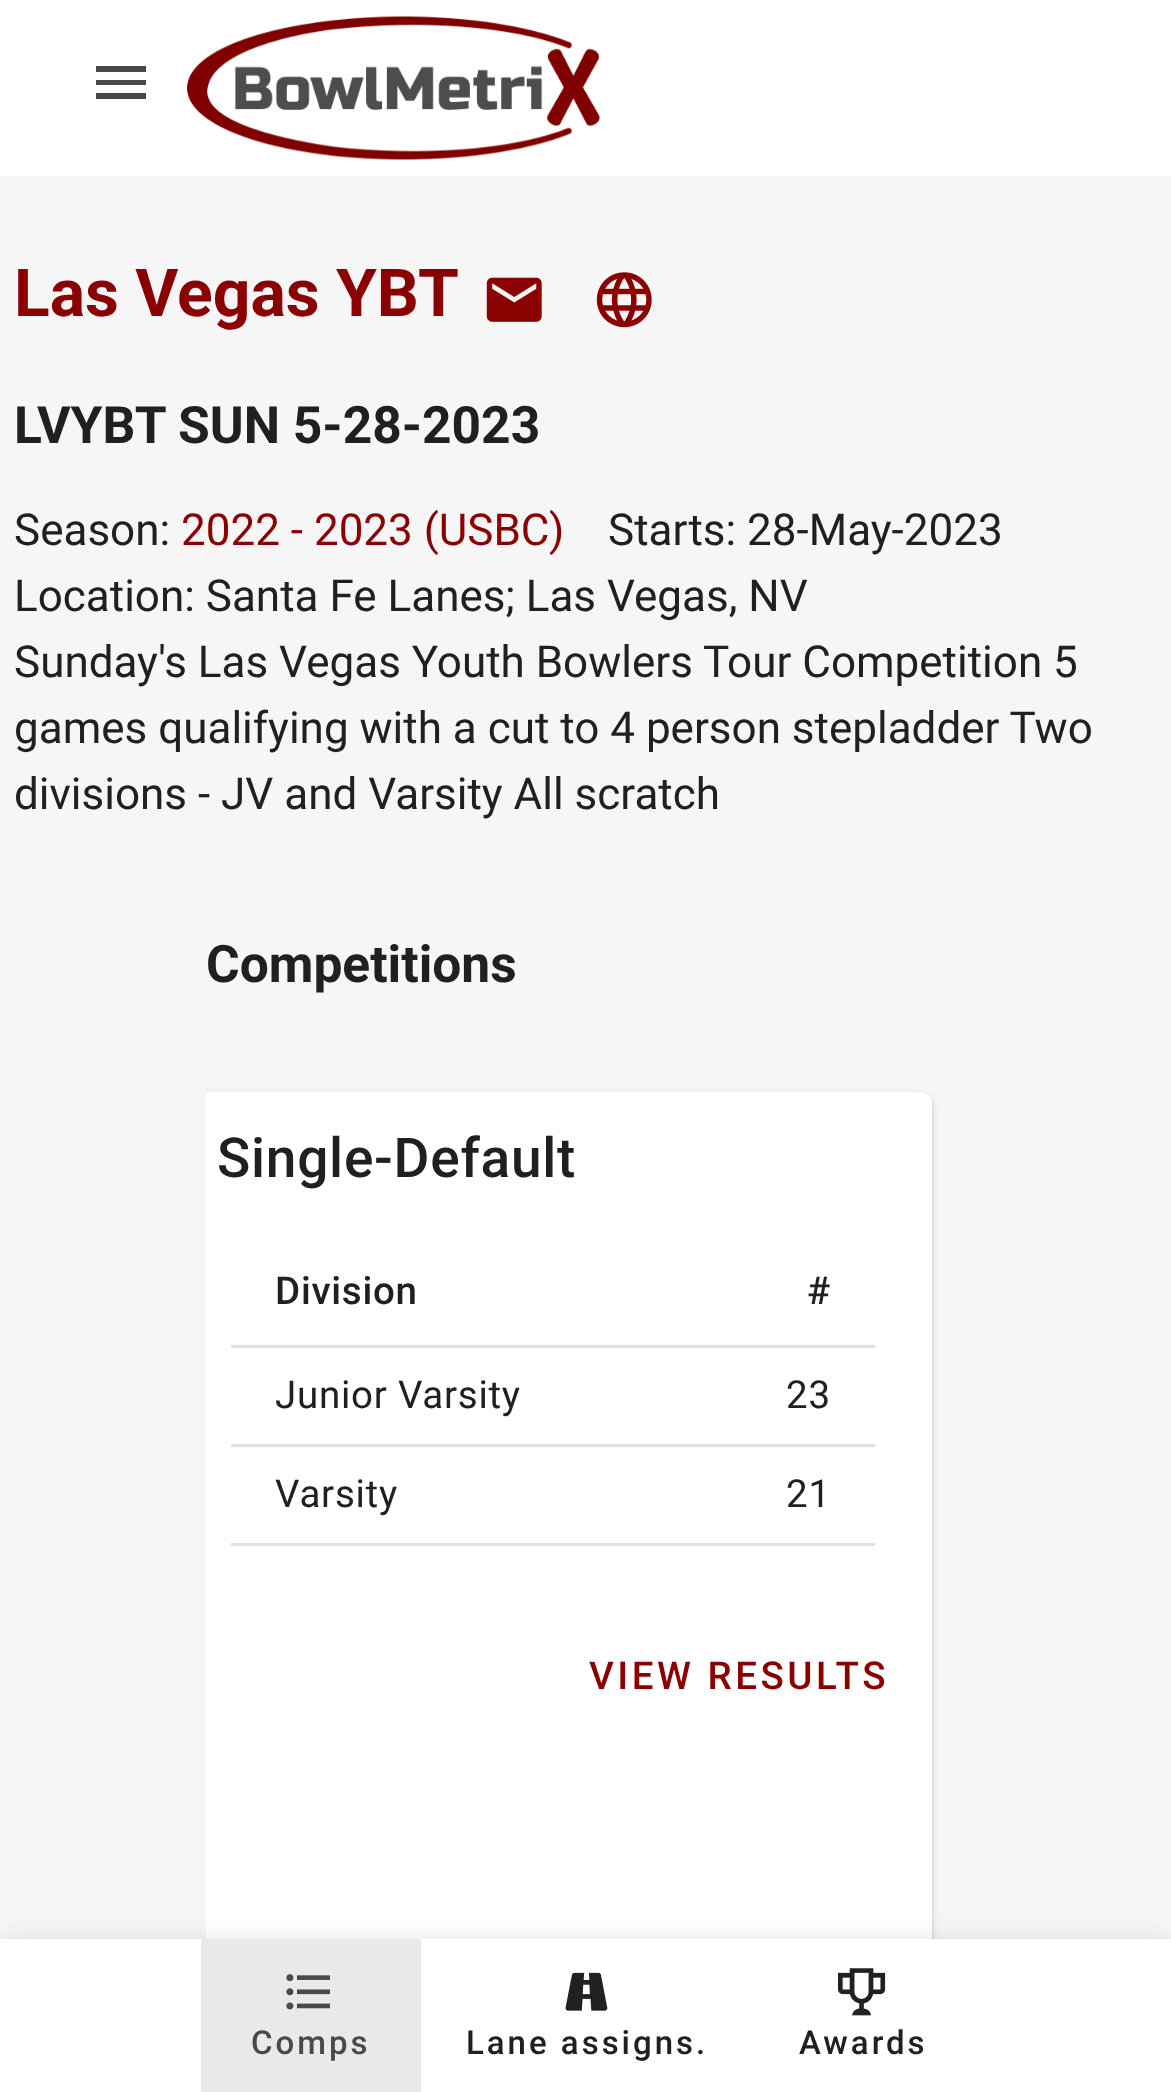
<?xml version="1.0" encoding="UTF-8"?>
<svg xmlns="http://www.w3.org/2000/svg" width="1171" height="2092">
    <defs>
        <clipPath id="clip1"><rect x="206" y="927" width="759" height="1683"/></clipPath>
        <filter id="blur1" x="-50%" y="-200%" width="200%" height="500%"><feGaussianBlur stdDeviation="4"/></filter>
        <filter id="blur2" x="-50%" y="-200%" width="200%" height="500%"><feGaussianBlur stdDeviation="1.5"/></filter>
        <filter id="blur3" x="-50%" y="-200%" width="200%" height="500%"><feGaussianBlur stdDeviation="14"/></filter>
    </defs>
    <rect width="100%" height="100%" fill="#F6F6F6"/>
    <rect x="0" y="0" width="1171" height="176" fill="#FFFFFF"/>
    <path d="M 96 66 H 146 V 72 H 96 Z M 96 80 H 146 V 85 H 96 Z M 96 93 H 146 V 99 H 96 Z" fill="#464A4D"/>
    <image x="187" y="16" width="413" height="144" href="img_01.png"/>
    <text x="14" y="316" font-family="Roboto" font-size="66" font-weight="700" fill="#8B0000">Las Vegas YBT</text>
    <image x="486" y="277" width="56" height="45" href="img_02.png"/>
    <image x="596" y="272" width="56" height="56" href="img_03.png"/>
    <text x="14" y="443" font-family="Roboto" font-size="51.5" font-weight="700" fill="#202020">LVYBT SUN 5-28-2023</text>
    <text x="14" y="545" font-family="Roboto" font-size="44" fill="#202020">Season:</text>
    <text x="181" y="545" font-family="Roboto" font-size="44" fill="#8B0000">2022 - 2023 (USBC)</text>
    <text x="608" y="545" font-family="Roboto" font-size="44" fill="#202020">Starts: 28-May-2023</text>
    <text font-family="Roboto" font-size="44" fill="#202020">
        <tspan x="14" y="611">Location: Santa Fe Lanes; Las Vegas, NV</tspan>
        <tspan x="14" y="677">Sunday's Las Vegas Youth Bowlers Tour Competition 5</tspan>
        <tspan x="14" y="743">games qualifying with a cut to 4 person stepladder Two</tspan>
        <tspan x="14" y="809">divisions - JV and Varsity All scratch</tspan>
    </text>
    <text x="206" y="982" font-family="Roboto" font-size="51.5" font-weight="700" fill="#202020">Competitions</text>
    <g clip-path="url(#clip1)">
        <rect x="173" y="1095" width="759" height="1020" rx="11" fill="#000000" fill-opacity="0.12" filter="url(#blur1)"/>
        <rect x="173" y="1095" width="759" height="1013" rx="11" fill="#000000" fill-opacity="0.14" filter="url(#blur2)"/>
    </g>
    <path d="M 206 1092 H 921 C 927 1092 932 1097 932 1103 V 2092 C 932 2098 927 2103 921 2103 H 206 Z" fill="#FFFFFF"/>
    <text x="217" y="1177" font-family="Roboto" font-size="55" font-weight="500" letter-spacing="0.75" fill="#202020">Single-Default</text>
    <rect x="231" y="1345" width="644" height="3" fill="#E0E0E0"/>
    <text x="275" y="1304" font-family="Roboto" font-size="38.5" font-weight="500" letter-spacing="0.75" fill="#202020">Division</text>
    <text x="807" y="1304" font-family="Roboto" font-size="38.5" font-weight="500" letter-spacing="0.75" fill="#202020">#</text>
    <rect x="231" y="1444" width="644" height="3" fill="#E0E0E0"/>
    <text x="275" y="1408" font-family="Roboto" font-size="38.5" letter-spacing="0.75" fill="#202020">Junior Varsity</text>
    <text x="786" y="1408" font-family="Roboto" font-size="38.5" letter-spacing="0.75" fill="#202020">23</text>
    <rect x="231" y="1543" width="644" height="3" fill="#E0E0E0"/>
    <text x="275" y="1507" font-family="Roboto" font-size="38.5" letter-spacing="0.75" fill="#202020">Varsity</text>
    <text x="786" y="1507" font-family="Roboto" font-size="38.5" letter-spacing="0.75" fill="#202020">21</text>
    <text x="589" y="1689" font-family="Roboto" font-size="38.5" font-weight="500" letter-spacing="3.5" fill="#8B0000">VIEW RESULTS</text>
    <rect x="0" y="1942" width="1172" height="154" fill="#000000" fill-opacity="0.12" filter="url(#blur3)"/>
    <rect x="0" y="1939" width="1171" height="153" fill="#FFFFFF"/>
    <rect x="201" y="1939" width="220" height="153" fill="#E9E9EA"/>
    <image x="286" y="1974" width="44" height="36" href="img_04.png"/>
    <text x="251" y="2054" font-family="Roboto" font-size="33" font-weight="500" letter-spacing="3" fill="#464A4D">Comps</text>
    <image x="565" y="1972" width="43" height="39" href="img_05.png"/>
    <text x="466" y="2054" font-family="Roboto" font-size="33" font-weight="500" letter-spacing="3" fill="#202020">Lane assigns.</text>
    <image x="838" y="1968" width="48" height="48" href="img_06.png"/>
    <text x="799" y="2054" font-family="Roboto" font-size="33" font-weight="500" letter-spacing="3" fill="#202020">Awards</text>
</svg>
